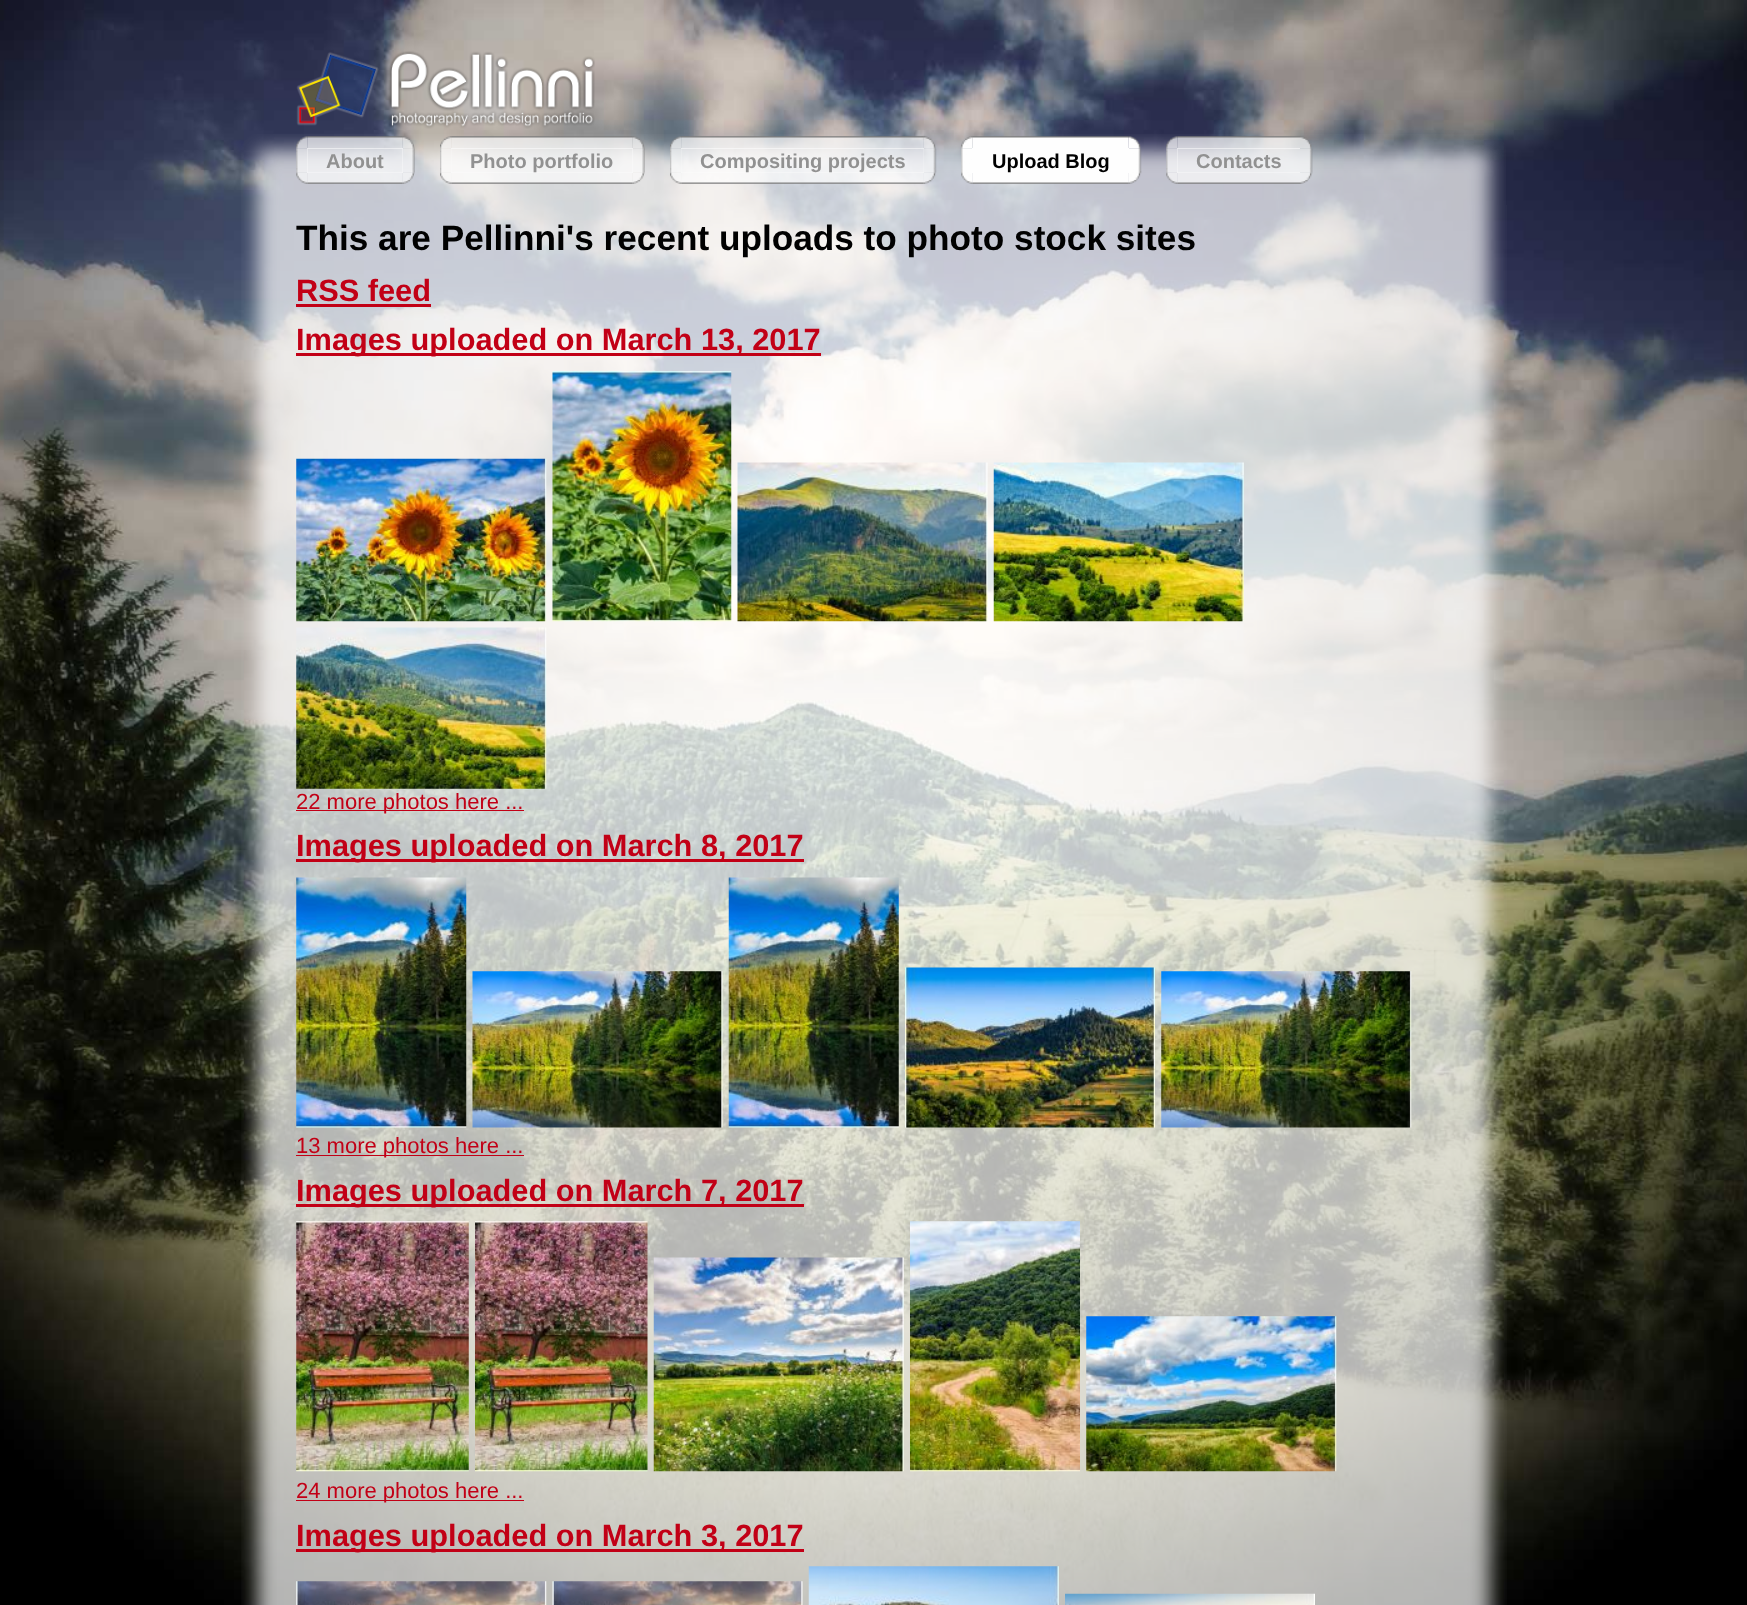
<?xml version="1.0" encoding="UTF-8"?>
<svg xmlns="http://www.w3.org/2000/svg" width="1747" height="1605">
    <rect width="100%" height="100%" fill="#FFFFFF"/>
    <image x="0" y="0" width="1747" height="1605" href="img_01.png"/>
    <image x="296" y="51" width="299" height="78" href="img_02.png"/>
    <image x="241" y="134" width="1265" height="71" href="img_03.png"/>
    <image x="296" y="136" width="12" height="13" href="img_04.png"/>
    <image x="402" y="136" width="13" height="13" href="img_05.png"/>
    <image x="296" y="172" width="12" height="12" href="img_06.png"/>
    <image x="402" y="172" width="13" height="12" href="img_07.png"/>
    <image x="307" y="136" width="96" height="13" href="img_08.png"/>
    <image x="307" y="172" width="96" height="12" href="img_09.png"/>
    <image x="296" y="148" width="12" height="25" href="img_10.png"/>
    <image x="402" y="148" width="13" height="25" href="img_11.png"/>
    <rect x="307" y="148" width="96" height="25" fill="#FEFEFE" fill-opacity="0.7"/>
    <text x="326" y="168" font-family="Liberation Sans" font-size="20" font-weight="700" fill="#919191">About</text>
    <image x="440" y="136" width="12" height="13" href="img_12.png"/>
    <image x="632" y="136" width="13" height="13" href="img_13.png"/>
    <image x="440" y="172" width="12" height="12" href="img_14.png"/>
    <image x="632" y="172" width="13" height="12" href="img_15.png"/>
    <image x="451" y="136" width="182" height="13" href="img_16.png"/>
    <image x="451" y="172" width="182" height="12" href="img_17.png"/>
    <image x="440" y="148" width="12" height="25" href="img_18.png"/>
    <image x="632" y="148" width="13" height="25" href="img_19.png"/>
    <rect x="451" y="148" width="182" height="25" fill="#FEFEFE" fill-opacity="0.7"/>
    <text x="470" y="168" font-family="Liberation Sans" font-size="20" font-weight="700" fill="#919191">Photo portfolio</text>
    <image x="670" y="136" width="12" height="13" href="img_20.png"/>
    <image x="923" y="136" width="13" height="13" href="img_21.png"/>
    <image x="670" y="172" width="12" height="12" href="img_22.png"/>
    <image x="923" y="172" width="13" height="12" href="img_23.png"/>
    <image x="681" y="136" width="243" height="13" href="img_24.png"/>
    <image x="681" y="172" width="243" height="12" href="img_25.png"/>
    <image x="670" y="148" width="12" height="25" href="img_26.png"/>
    <image x="923" y="148" width="14" height="25" href="img_27.png"/>
    <rect x="681" y="148" width="243" height="25" fill="#FEFEFE" fill-opacity="0.7"/>
    <text x="700" y="168" font-family="Liberation Sans" font-size="20" font-weight="700" fill="#919191">Compositing projects</text>
    <image x="961" y="136" width="12" height="13" href="img_28.png"/>
    <image x="1128" y="136" width="13" height="13" href="img_29.png"/>
    <image x="961" y="171" width="12" height="13" href="img_30.png"/>
    <image x="1128" y="171" width="14" height="13" href="img_31.png"/>
    <image x="972" y="136" width="157" height="12" href="img_32.png"/>
    <image x="972" y="173" width="157" height="11" href="img_33.png"/>
    <image x="961" y="148" width="11" height="25" href="img_34.png"/>
    <image x="1129" y="148" width="13" height="25" href="img_35.png"/>
    <rect x="972" y="148" width="157" height="25" fill="#FEFEFE"/>
    <text x="992" y="168" font-family="Liberation Sans" font-size="20" font-weight="700" fill="#010101">Upload Blog</text>
    <image x="1166" y="136" width="12" height="13" href="img_36.png"/>
    <image x="1300" y="136" width="12" height="13" href="img_37.png"/>
    <image x="1166" y="172" width="12" height="12" href="img_38.png"/>
    <image x="1300" y="172" width="13" height="12" href="img_39.png"/>
    <image x="1177" y="136" width="123" height="13" href="img_40.png"/>
    <image x="1177" y="172" width="123" height="12" href="img_41.png"/>
    <image x="1166" y="148" width="12" height="25" href="img_42.png"/>
    <image x="1300" y="148" width="13" height="25" href="img_43.png"/>
    <rect x="1177" y="148" width="123" height="25" fill="#FEFEFE" fill-opacity="0.7"/>
    <text x="1196" y="168" font-family="Liberation Sans" font-size="20" font-weight="700" fill="#919191">Contacts</text>
    <image x="241" y="205" width="1266" height="1400" href="img_44.png"/>
    <text x="296" y="250" font-family="Liberation Sans" font-size="35.2" font-weight="700" fill="#010101">This are Pellinni's recent uploads to photo stock sites</text>
    <text x="296" y="301" font-family="Liberation Sans" font-size="30.75" font-weight="700" fill="#C20016">RSS feed</text>
    <rect x="296" y="304" width="135" height="3" fill="#C20016"/>
    <rect x="296" y="353" width="525" height="3" fill="#C20016"/>
    <text x="296" y="350" font-family="Liberation Sans" font-size="30.75" font-weight="700" fill="#C20016">Images uploaded on March 13, 2017</text>
    <image x="296" y="458" width="251" height="164" href="img_45.png"/>
    <image x="552" y="371" width="180" height="251" href="img_46.png"/>
    <image x="737" y="462" width="251" height="160" href="img_47.png"/>
    <image x="993" y="462" width="251" height="160" href="img_48.png"/>
    <image x="296" y="627" width="251" height="162" href="img_49.png"/>
    <rect x="296" y="810" width="228" height="1" fill="#C20016"/>
    <text x="296" y="809" font-family="Liberation Sans" font-size="22" fill="#C20016">22 more photos here ...</text>
    <rect x="296" y="859" width="508" height="3" fill="#C20016"/>
    <text x="296" y="856" font-family="Liberation Sans" font-size="30.75" font-weight="700" fill="#C20016">Images uploaded on March 8, 2017</text>
    <image x="296" y="877" width="171" height="251" href="img_50.png"/>
    <image x="472" y="971" width="251" height="157" href="img_51.png"/>
    <image x="728" y="877" width="171" height="251" href="img_52.png"/>
    <image x="905" y="967" width="250" height="161" href="img_53.png"/>
    <image x="1161" y="971" width="251" height="157" href="img_54.png"/>
    <rect x="296" y="1155" width="228" height="1" fill="#C20016"/>
    <text x="296" y="1153" font-family="Liberation Sans" font-size="22" fill="#C20016">13 more photos here ...</text>
    <rect x="296" y="1204" width="508" height="3" fill="#C20016"/>
    <text x="296" y="1201" font-family="Liberation Sans" font-size="30.75" font-weight="700" fill="#C20016">Images uploaded on March 7, 2017</text>
    <image x="296" y="1221" width="173" height="251" href="img_55.png"/>
    <image x="475" y="1221" width="173" height="251" href="img_56.png"/>
    <image x="653" y="1257" width="251" height="215" href="img_57.png"/>
    <image x="910" y="1221" width="170" height="251" href="img_58.png"/>
    <image x="1086" y="1316" width="251" height="156" href="img_59.png"/>
    <rect x="296" y="1500" width="228" height="1" fill="#C20016"/>
    <text x="296" y="1498" font-family="Liberation Sans" font-size="22" fill="#C20016">24 more photos here ...</text>
    <rect x="296" y="1549" width="508" height="3" fill="#C20016"/>
    <text x="296" y="1546" font-family="Liberation Sans" font-size="30.75" font-weight="700" fill="#C20016">Images uploaded on March 3, 2017</text>
    <image x="296" y="1581" width="251" height="24" href="img_60.png"/>
    <image x="552" y="1581" width="251" height="24" href="img_61.png"/>
    <image x="808" y="1566" width="251" height="39" href="img_62.png"/>
    <image x="1065" y="1593" width="250" height="12" href="img_63.png"/>
</svg>
